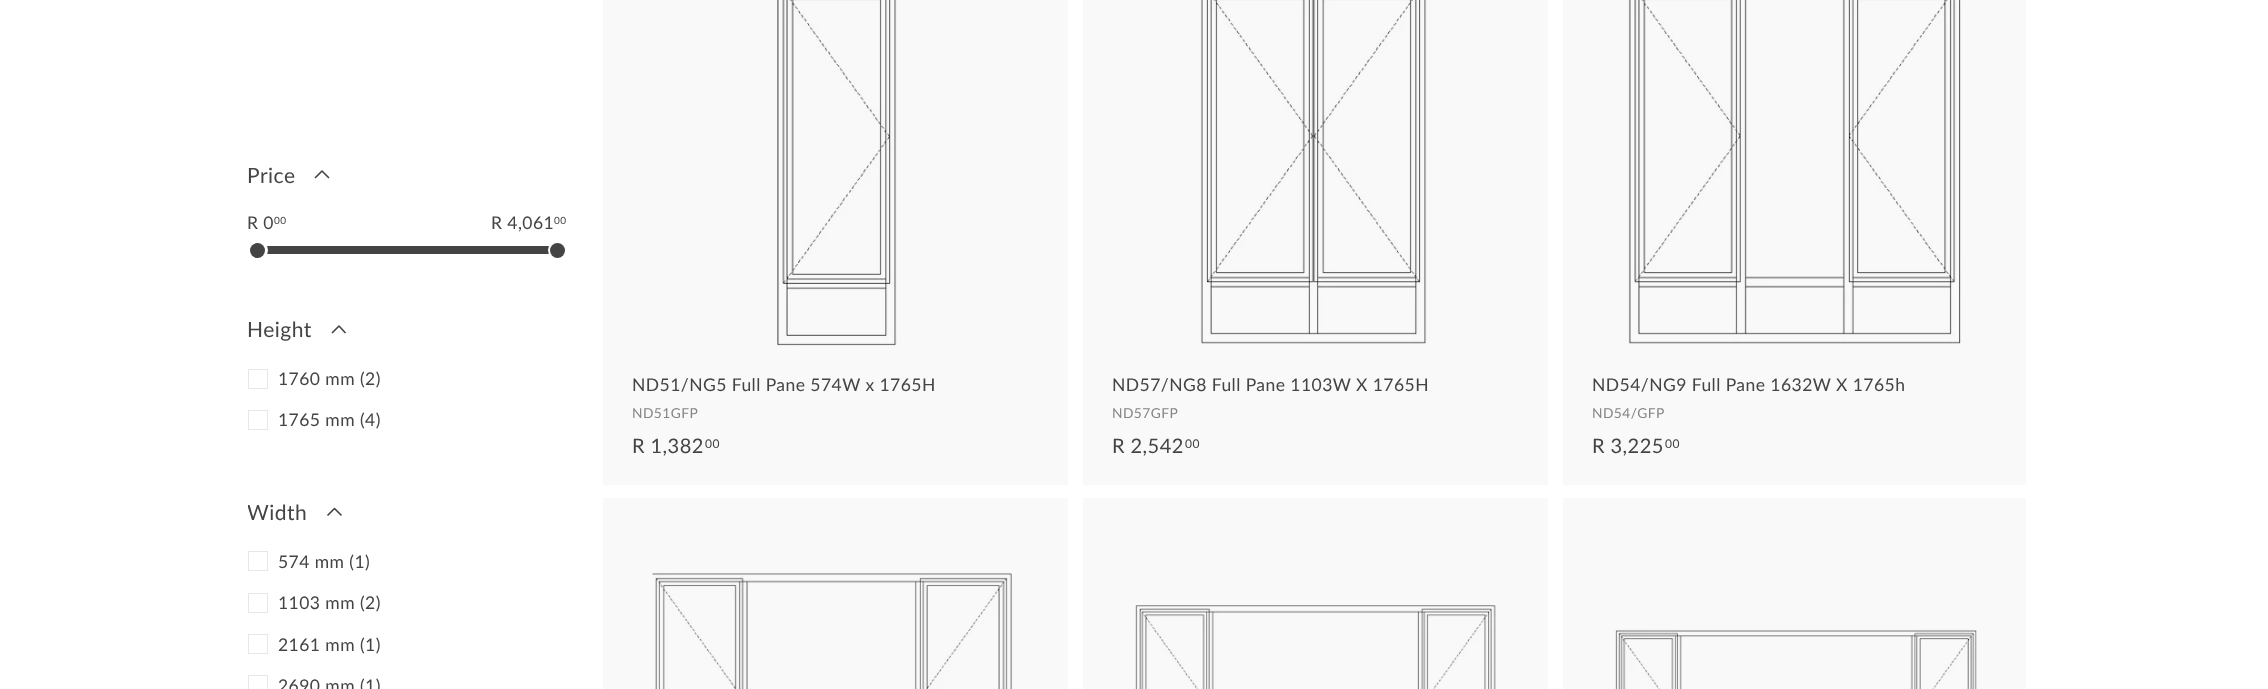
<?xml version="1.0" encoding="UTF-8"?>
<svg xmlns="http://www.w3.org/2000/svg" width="2268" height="689">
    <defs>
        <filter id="blur1" x="-50%" y="-200%" width="200%" height="500%"><feGaussianBlur stdDeviation="0.5"/></filter>
        <clipPath id="clip1"><rect x="248" y="490" width="320" height="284"/></clipPath>
    </defs>
    <rect width="100%" height="100%" fill="#FFFFFF"/>
    <rect x="1563" y="498" width="463" height="191" fill="#F9F9F9"/>
    <rect x="1083" y="498" width="465" height="191" fill="#F9F9F9"/>
    <rect x="603" y="498" width="465" height="191" fill="#F9F9F9"/>
    <rect x="1563" y="0" width="463" height="485" fill="#F9F9F9"/>
    <rect x="1083" y="0" width="465" height="485" fill="#F9F9F9"/>
    <rect x="603" y="0" width="465" height="485" fill="#F9F9F9"/>
    <text x="247" y="183" font-family="Lato" font-size="21" letter-spacing="0.5" fill="#444444">Price</text>
    <path d="M 329 178 L 322 171 L 315 178" fill="none" stroke="#444444" stroke-width="1.6" stroke-linejoin="round"/>
    <text x="247" y="229" font-family="Lato" font-size="17.5" letter-spacing="0.45" fill="#444444">R 0</text>
    <text x="274" y="224" font-family="Lato" font-size="10" letter-spacing="0.45" fill="#444444">00</text>
    <text x="491" y="229" font-family="Lato" font-size="17.5" letter-spacing="0.45" fill="#444444">R 4,061</text>
    <text x="554" y="224" font-family="Lato" font-size="10" letter-spacing="0.45" fill="#444444">00</text>
    <rect x="258" y="246" width="300" height="8" fill="#444444"/>
    <rect x="248" y="240" width="20" height="20" rx="10" fill="#FFFFFF" filter="url(#blur1)"/>
    <circle cx="257.5" cy="250.5" r="7.5" fill="#444444"/>
    <rect x="548" y="240" width="20" height="20" rx="10" fill="#FFFFFF" filter="url(#blur1)"/>
    <circle cx="557.5" cy="250.5" r="7.5" fill="#444444"/>
    <text x="247" y="337" font-family="Lato" font-size="21" letter-spacing="0.5" fill="#444444">Height</text>
    <path d="M 345.5 333 L 339 326 L 332 333" fill="none" stroke="#444444" stroke-width="1.6" stroke-linejoin="round"/>
    <rect x="248.5" y="369.5" width="19" height="19" fill="none" stroke="#E7E7E7"/>
    <text x="278" y="385" font-family="Lato" font-size="17.5" letter-spacing="0.45" fill="#444444">1760 mm (2)</text>
    <rect x="248.5" y="410.5" width="19" height="19" fill="none" stroke="#E7E7E7"/>
    <text x="278" y="426" font-family="Lato" font-size="17.5" letter-spacing="0.45" fill="#444444">1765 mm (4)</text>
    <g clip-path="url(#clip1)">
        <text x="247" y="520" font-family="Lato" font-size="21" letter-spacing="0.5" fill="#444444">Width</text>
    </g>
    <path d="M 341.5 515.5 L 334.5 508.5 L 327.5 515.5" fill="none" stroke="#444444" stroke-width="1.6" stroke-linejoin="round"/>
    <rect x="248.5" y="551.5" width="19" height="19" fill="none" stroke="#E7E7E7"/>
    <text x="278" y="568" font-family="Lato" font-size="17.5" letter-spacing="0.45" fill="#444444">574 mm (1)</text>
    <rect x="248.5" y="593.5" width="19" height="19" fill="none" stroke="#E7E7E7"/>
    <text x="278" y="609" font-family="Lato" font-size="17.5" letter-spacing="0.45" fill="#444444">1103 mm (2)</text>
    <rect x="248.5" y="634.5" width="19" height="19" fill="none" stroke="#E7E7E7"/>
    <text x="278" y="651" font-family="Lato" font-size="17.5" letter-spacing="0.45" fill="#444444">2161 mm (1)</text>
    <rect x="248.5" y="675.5" width="19" height="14" fill="none" stroke="#E7E7E7"/>
    <text x="278" y="692" font-family="Lato" font-size="17.5" letter-spacing="0.45" fill="#444444">2690 mm (1)</text>
    <image x="777" y="0" width="120" height="346" href="img_01.png"/>
    <text x="632" y="391" font-family="Lato" font-size="17.5" letter-spacing="0.45" fill="#444444">ND51/NG5 Full Pane 574W x 1765H</text>
    <text x="632" y="418" font-family="Lato" font-size="13.75" letter-spacing="0.45" fill="#838383">ND51GFP</text>
    <text x="632" y="453" font-family="Lato" font-size="20" letter-spacing="0.45" fill="#444444">R 1,382</text>
    <text x="705" y="448" font-family="Lato" font-size="12" letter-spacing="0.45" fill="#444444">00</text>
    <image x="1200" y="0" width="227" height="344" href="img_02.png"/>
    <text x="1112" y="391" font-family="Lato" font-size="17.5" letter-spacing="0.45" fill="#444444">ND57/NG8 Full Pane 1103W X 1765H</text>
    <text x="1112" y="418" font-family="Lato" font-size="13.75" letter-spacing="0.45" fill="#838383">ND57GFP</text>
    <text x="1112" y="453" font-family="Lato" font-size="20" letter-spacing="0.45" fill="#444444">R 2,542</text>
    <text x="1185" y="448" font-family="Lato" font-size="12" letter-spacing="0.45" fill="#444444">00</text>
    <image x="1628" y="0" width="334" height="346" href="img_03.png"/>
    <text x="1592" y="391" font-family="Lato" font-size="17.5" letter-spacing="0.45" fill="#444444">ND54/NG9 Full Pane 1632W X 1765h</text>
    <text x="1592" y="418" font-family="Lato" font-size="13.75" letter-spacing="0.45" fill="#838383">ND54/GFP</text>
    <text x="1592" y="453" font-family="Lato" font-size="20" letter-spacing="0.45" fill="#444444">R 3,225</text>
    <text x="1665" y="448" font-family="Lato" font-size="12" letter-spacing="0.45" fill="#444444">00</text>
    <image x="652" y="572" width="361" height="117" href="img_04.png"/>
    <image x="1135" y="605" width="361" height="84" href="img_05.png"/>
    <image x="1615" y="629" width="362" height="60" href="img_06.png"/>
</svg>
